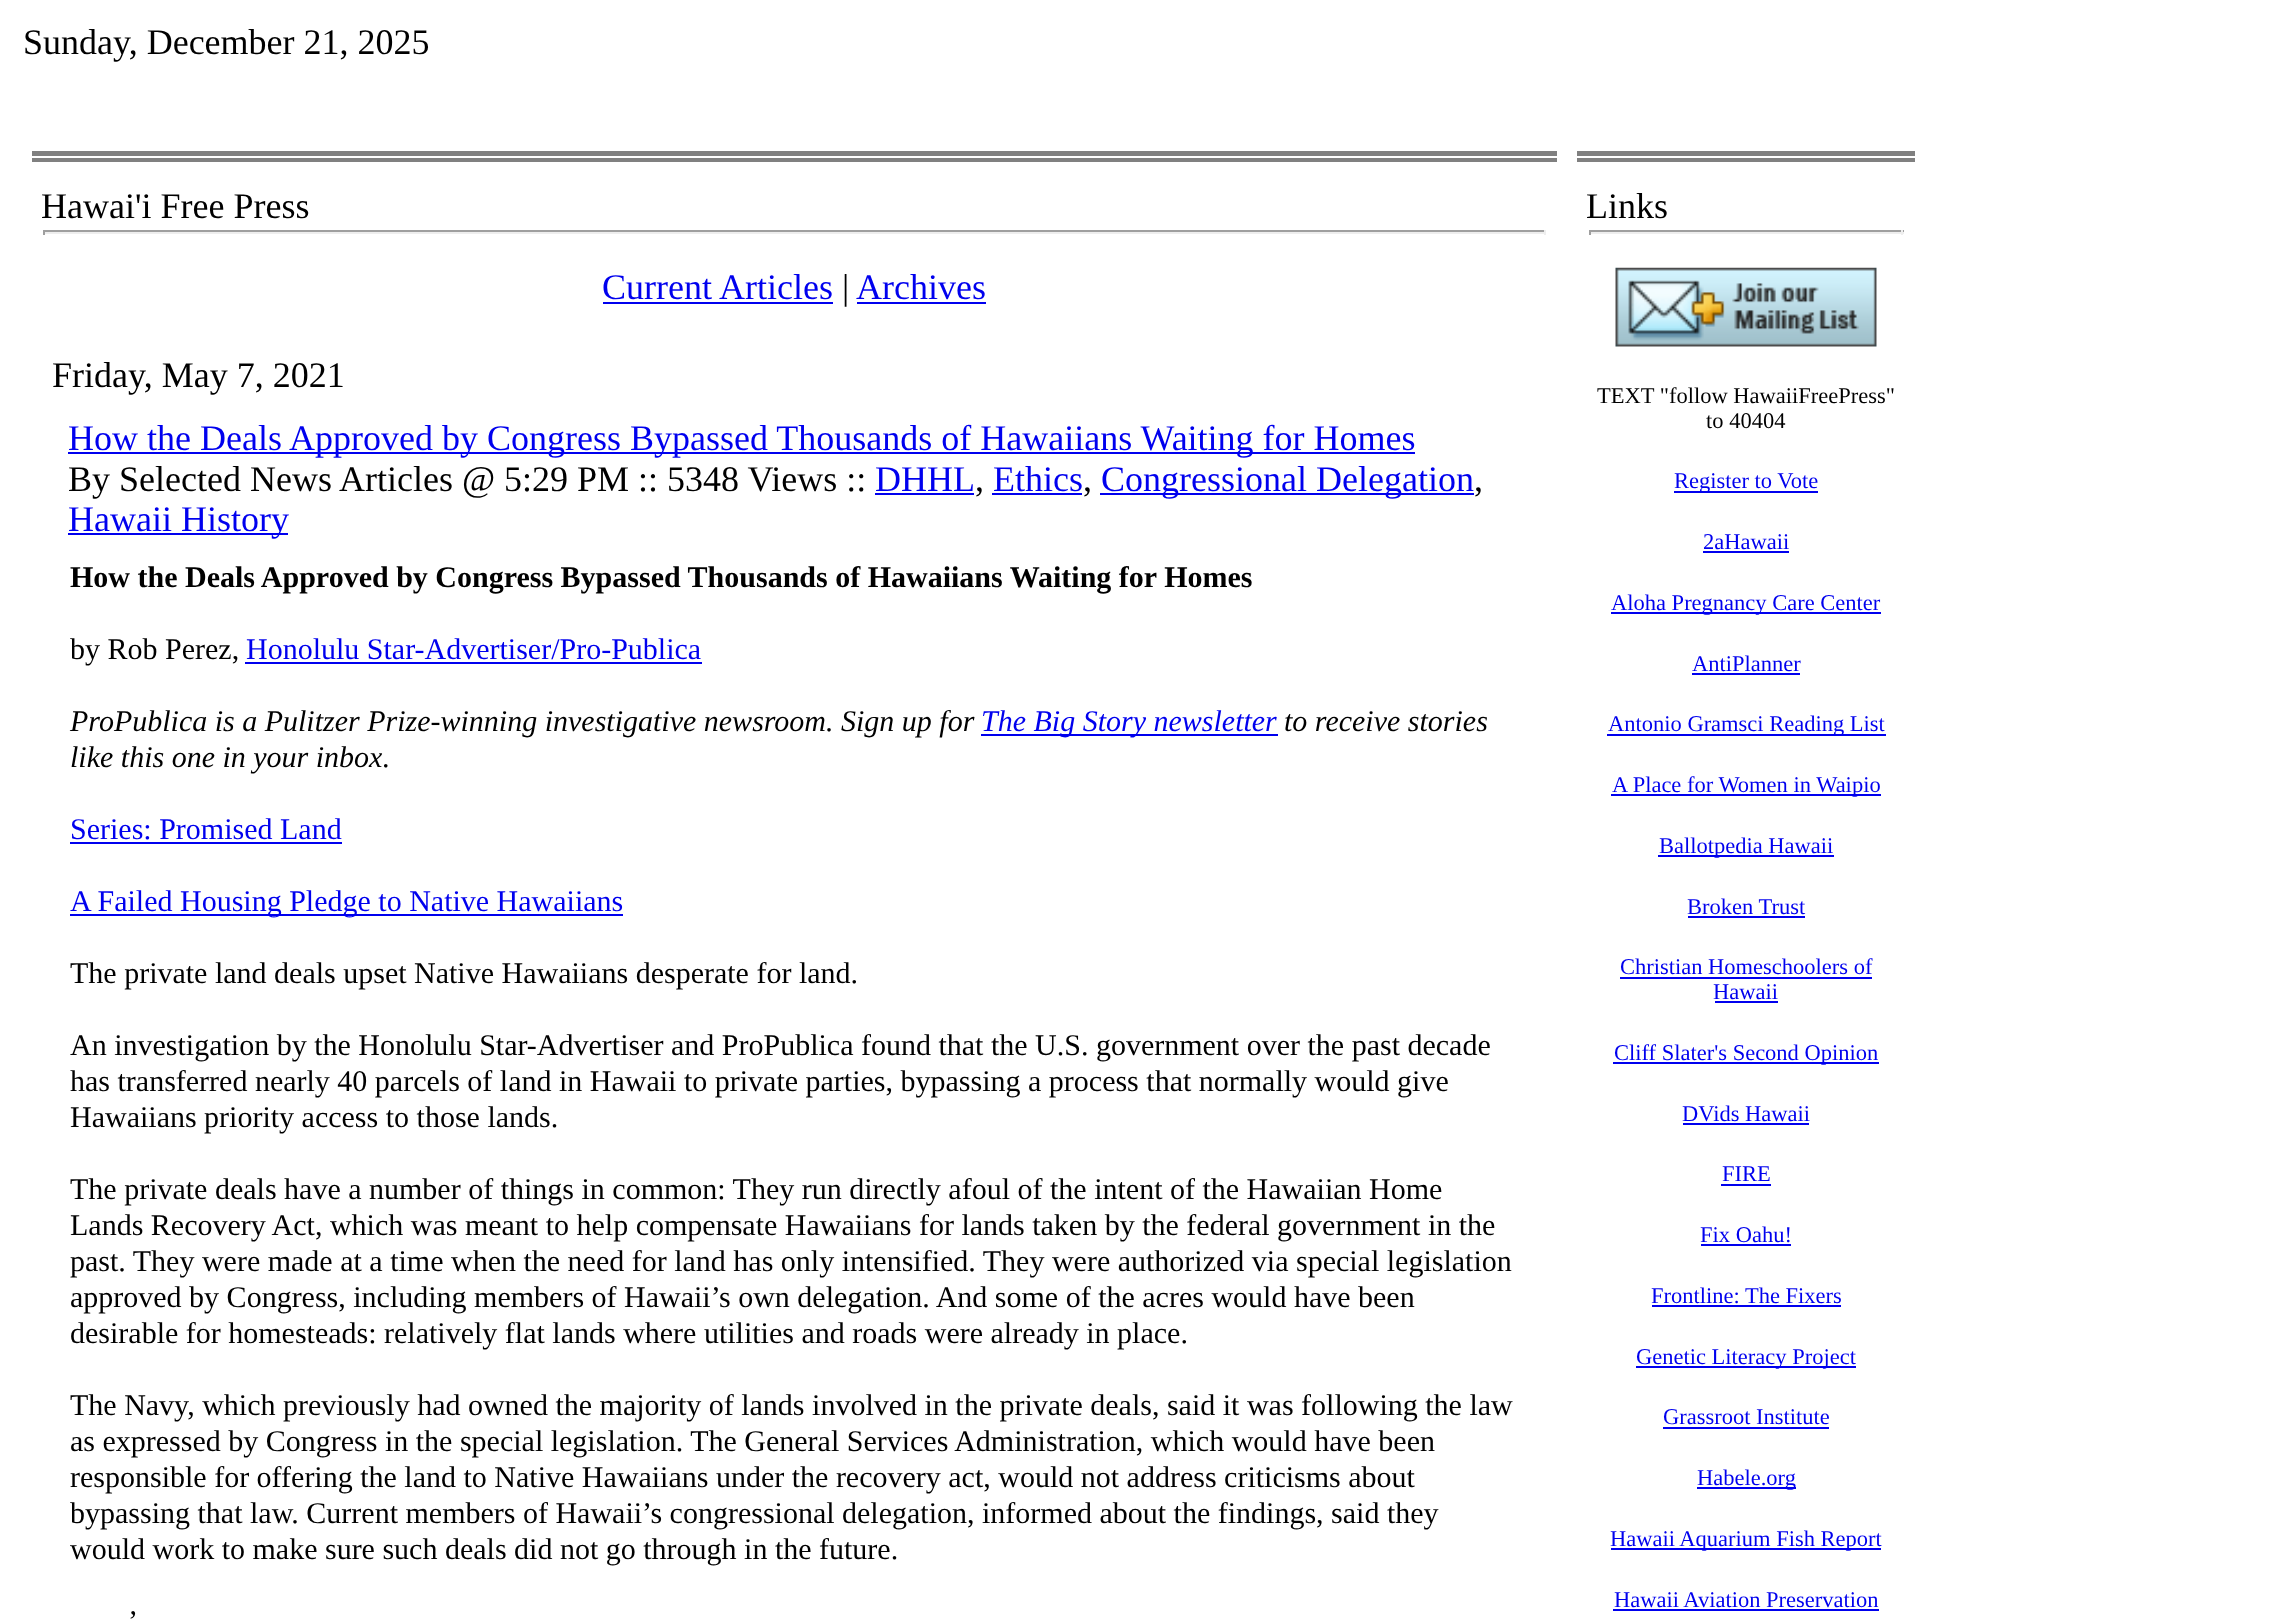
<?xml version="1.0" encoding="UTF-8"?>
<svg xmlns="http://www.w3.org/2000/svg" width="2285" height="1622">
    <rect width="100%" height="100%" fill="#FFFFFF"/>
    <text x="23" y="54" font-family="Liberation Serif" font-size="36" fill="#000000">Sunday, December 21, 2025</text>
    <rect x="32" y="151" width="1525" height="5" fill="#808080"/>
    <rect x="32" y="158" width="1525" height="4" fill="#808080"/>
    <text x="41" y="218" font-family="Liberation Serif" font-size="36" fill="#000000">Hawai'i Free Press</text>
    <rect x="43" y="230" width="1503" height="2" fill="#9F9F9F"/>
    <rect x="1544" y="230" width="2" height="5" fill="#EEEEEE"/>
    <rect x="43" y="232" width="1503" height="2" fill="#EEEEEE"/>
    <rect x="43" y="230" width="2" height="5" fill="#9F9F9F"/>
    <text x="602" y="299" font-family="Liberation Serif" font-size="36" fill="#0000EE">Current</text>
    <rect x="603" y="302" width="230" height="2" fill="#0000EE"/>
    <text x="719" y="299" font-family="Liberation Serif" font-size="36" fill="#0000EE">Articles</text>
    <text x="842" y="299" font-family="Liberation Serif" font-size="36" fill="#000000">|</text>
    <text x="856" y="299" font-family="Liberation Serif" font-size="36" fill="#0000EE">Archives</text>
    <rect x="857" y="302" width="129" height="2" fill="#0000EE"/>
    <text x="52" y="387" font-family="Liberation Serif" font-size="36" fill="#000000">Friday, May 7, 2021</text>
    <rect x="68" y="452" width="1347" height="2" fill="#0000EE"/>
    <text x="68" y="450" font-family="Liberation Serif" font-size="36" fill="#0000EE">How the Deals Approved by Congress Bypassed Thousands of Hawaiians Waiting for Homes</text>
    <text x="68" y="491" font-family="Liberation Serif" font-size="36" fill="#000000">By Selected News Articles @ 5:29 PM :: 5348 Views ::</text>
    <text x="875" y="491" font-family="Liberation Serif" font-size="36" fill="#0000EE">DHHL</text>
    <rect x="875" y="493" width="99" height="2" fill="#0000EE"/>
    <text x="975" y="491" font-family="Liberation Serif" font-size="36" fill="#000000">,</text>
    <text x="993" y="491" font-family="Liberation Serif" font-size="36" fill="#0000EE">Ethics</text>
    <rect x="992" y="493" width="90" height="2" fill="#0000EE"/>
    <text x="1083" y="491" font-family="Liberation Serif" font-size="36" fill="#000000">,</text>
    <rect x="1100" y="493" width="374" height="2" fill="#0000EE"/>
    <text x="1101" y="491" font-family="Liberation Serif" font-size="36" fill="#0000EE">Congressional Delegation</text>
    <text x="1474" y="491" font-family="Liberation Serif" font-size="36" fill="#000000">,</text>
    <rect x="68" y="533" width="220" height="2" fill="#0000EE"/>
    <text x="68" y="531" font-family="Liberation Serif" font-size="36" fill="#0000EE">Hawaii History</text>
    <text x="70" y="587" font-family="Liberation Serif" font-size="30" font-weight="700" fill="#000000">How the Deals Approved by Congress Bypassed Thousands of Hawaiians Waiting for Homes</text>
    <text x="70" y="659" font-family="Liberation Serif" font-size="30" fill="#000000">by Rob Perez,</text>
    <text x="246" y="659" font-family="Liberation Serif" font-size="30" fill="#0000EE">Honolulu Star-Advertiser/Pro-Publica</text>
    <rect x="245" y="662" width="457" height="2" fill="#0000EE"/>
    <text x="70" y="731" font-family="Liberation Serif" font-size="30" font-style="italic" fill="#000000">ProPublica is a Pulitzer Prize-winning investigative newsroom. Sign up for</text>
    <rect x="981" y="734" width="297" height="2" fill="#0000EE"/>
    <text x="981" y="731" font-family="Liberation Serif" font-size="30" font-style="italic" fill="#0000EE">The Big Story newsletter</text>
    <text x="1284" y="731" font-family="Liberation Serif" font-size="30" font-style="italic" fill="#000000">to receive stories</text>
    <text x="70" y="767" font-family="Liberation Serif" font-size="30" font-style="italic" fill="#000000">like this one in your inbox</text>
    <text x="382" y="767" font-family="Liberation Serif" font-size="30" fill="#000000">.</text>
    <text x="70" y="839" font-family="Liberation Serif" font-size="30" fill="#0000EE">Series: Promised Land</text>
    <rect x="70" y="842" width="272" height="2" fill="#0000EE"/>
    <rect x="70" y="914" width="553" height="2" fill="#0000EE"/>
    <text x="70" y="911" font-family="Liberation Serif" font-size="30" fill="#0000EE">A Failed Housing Pledge to Native Hawaiians</text>
    <text x="70" y="983" font-family="Liberation Serif" font-size="30" fill="#000000">The private land deals upset Native Hawaiians desperate for land.</text>
    <text font-family="Liberation Serif" font-size="30" fill="#000000">
        <tspan x="70" y="1055">An investigation by the Honolulu Star-Advertiser and ProPublica found that the U.S. government over the past decade</tspan>
        <tspan x="70" y="1091">has transferred nearly 40 parcels of land in Hawaii to private parties, bypassing a process that normally would give</tspan>
        <tspan x="70" y="1127">Hawaiians priority access to those lands.</tspan>
    </text>
    <text font-family="Liberation Serif" font-size="30" fill="#000000">
        <tspan x="70" y="1199">The private deals have a number of things in common: They run directly afoul of the intent of the Hawaiian Home</tspan>
        <tspan x="70" y="1235">Lands Recovery Act, which was meant to help compensate Hawaiians for lands taken by the federal government in the</tspan>
        <tspan x="70" y="1271">past. They were made at a time when the need for land has only intensified. They were authorized via special legislation</tspan>
        <tspan x="70" y="1307">approved by Congress, including members of Hawaii’s own delegation. And some of the acres would have been</tspan>
        <tspan x="70" y="1343">desirable for homesteads: relatively flat lands where utilities and roads were already in place.</tspan>
    </text>
    <text font-family="Liberation Serif" font-size="30" fill="#000000">
        <tspan x="70" y="1415">The Navy, which previously had owned the majority of lands involved in the private deals, said it was following the law</tspan>
        <tspan x="70" y="1451">as expressed by Congress in the special legislation. The General Services Administration, which would have been</tspan>
        <tspan x="70" y="1487">responsible for offering the land to Native Hawaiians under the recovery act, would not address criticisms about</tspan>
        <tspan x="70" y="1523">bypassing that law. Current members of Hawaii’s congressional delegation, informed about the findings, said they</tspan>
        <tspan x="70" y="1559">would work to make sure such deals did not go through in the future.</tspan>
    </text>
    <text x="128" y="1631" font-family="Liberation Serif" font-size="30" fill="#000000">’</text>
    <rect x="1577" y="151" width="338" height="5" fill="#808080"/>
    <rect x="1577" y="158" width="338" height="4" fill="#808080"/>
    <text x="1586" y="218" font-family="Liberation Serif" font-size="36" fill="#000000">Links</text>
    <rect x="1589" y="230" width="315" height="2" fill="#9F9F9F"/>
    <rect x="1901" y="230" width="2" height="5" fill="#EEEEEE"/>
    <rect x="1589" y="232" width="315" height="2" fill="#EEEEEE"/>
    <rect x="1589" y="230" width="2" height="5" fill="#9F9F9F"/>
    <image x="1615" y="267" width="262" height="80" href="img_01.png"/>
    <text x="1597" y="403" font-family="Liberation Serif" font-size="22.5" fill="#000000">TEXT "follow HawaiiFreePress"</text>
    <text x="1706" y="428" font-family="Liberation Serif" font-size="22.5" fill="#000000">to 40404</text>
    <rect x="1674" y="491" width="144" height="2" fill="#0000EE"/>
    <text x="1674" y="488" font-family="Liberation Serif" font-size="22.5" fill="#0000EE">Register to Vote</text>
    <text x="1703" y="549" font-family="Liberation Serif" font-size="22.5" fill="#0000EE">2aHawaii</text>
    <rect x="1703" y="551" width="86" height="2" fill="#0000EE"/>
    <rect x="1611" y="612" width="270" height="2" fill="#0000EE"/>
    <text x="1611" y="610" font-family="Liberation Serif" font-size="22.5" fill="#0000EE">Aloha Pregnancy Care Center</text>
    <text x="1692" y="671" font-family="Liberation Serif" font-size="22.5" fill="#0000EE">AntiPlanner</text>
    <rect x="1692" y="673" width="108" height="2" fill="#0000EE"/>
    <rect x="1607" y="734" width="279" height="2" fill="#0000EE"/>
    <text x="1608" y="731" font-family="Liberation Serif" font-size="22.5" fill="#0000EE">Antonio Gramsci Reading List</text>
    <rect x="1611" y="794" width="270" height="2" fill="#0000EE"/>
    <text x="1612" y="792" font-family="Liberation Serif" font-size="22.5" fill="#0000EE">A Place for Women in Waipio</text>
    <rect x="1658" y="855" width="176" height="2" fill="#0000EE"/>
    <text x="1659" y="853" font-family="Liberation Serif" font-size="22.5" fill="#0000EE">Ballotpedia Hawaii</text>
    <text x="1687" y="914" font-family="Liberation Serif" font-size="22.5" fill="#0000EE">Broken Trust</text>
    <rect x="1688" y="916" width="117" height="2" fill="#0000EE"/>
    <text x="1620" y="974" font-family="Liberation Serif" font-size="22.5" fill="#0000EE">Christian Homeschoolers of</text>
    <rect x="1620" y="977" width="252" height="2" fill="#0000EE"/>
    <text x="1713" y="999" font-family="Liberation Serif" font-size="22.5" fill="#0000EE">Hawaii</text>
    <rect x="1715" y="1001" width="63" height="2" fill="#0000EE"/>
    <rect x="1613" y="1062" width="266" height="2" fill="#0000EE"/>
    <text x="1614" y="1060" font-family="Liberation Serif" font-size="22.5" fill="#0000EE">Cliff Slater's Second Opinion</text>
    <text x="1682" y="1121" font-family="Liberation Serif" font-size="22.5" fill="#0000EE">DVids Hawaii</text>
    <rect x="1683" y="1123" width="126" height="2" fill="#0000EE"/>
    <text x="1722" y="1181" font-family="Liberation Serif" font-size="22.5" fill="#0000EE">FIRE</text>
    <rect x="1721" y="1184" width="50" height="2" fill="#0000EE"/>
    <text x="1700" y="1242" font-family="Liberation Serif" font-size="22.5" fill="#0000EE">Fix Oahu!</text>
    <rect x="1701" y="1244" width="90" height="2" fill="#0000EE"/>
    <text x="1651" y="1303" font-family="Liberation Serif" font-size="22.5" fill="#0000EE">Frontline: The Fixers</text>
    <rect x="1652" y="1305" width="189" height="2" fill="#0000EE"/>
    <rect x="1636" y="1366" width="220" height="2" fill="#0000EE"/>
    <text x="1636" y="1364" font-family="Liberation Serif" font-size="22.5" fill="#0000EE">Genetic Literacy Project</text>
    <text x="1663" y="1424" font-family="Liberation Serif" font-size="22.5" fill="#0000EE">Grassroot Institute</text>
    <rect x="1663" y="1427" width="166" height="2" fill="#0000EE"/>
    <rect x="1697" y="1487" width="99" height="2" fill="#0000EE"/>
    <text x="1697" y="1485" font-family="Liberation Serif" font-size="22.5" fill="#0000EE">Habele.org</text>
    <rect x="1611" y="1548" width="270" height="2" fill="#0000EE"/>
    <text x="1610" y="1546" font-family="Liberation Serif" font-size="22.5" fill="#0000EE">Hawaii Aquarium Fish Report</text>
    <text x="1614" y="1607" font-family="Liberation Serif" font-size="22.5" fill="#0000EE">Hawaii Aviation Preservation</text>
    <rect x="1613" y="1609" width="266" height="2" fill="#0000EE"/>
</svg>
